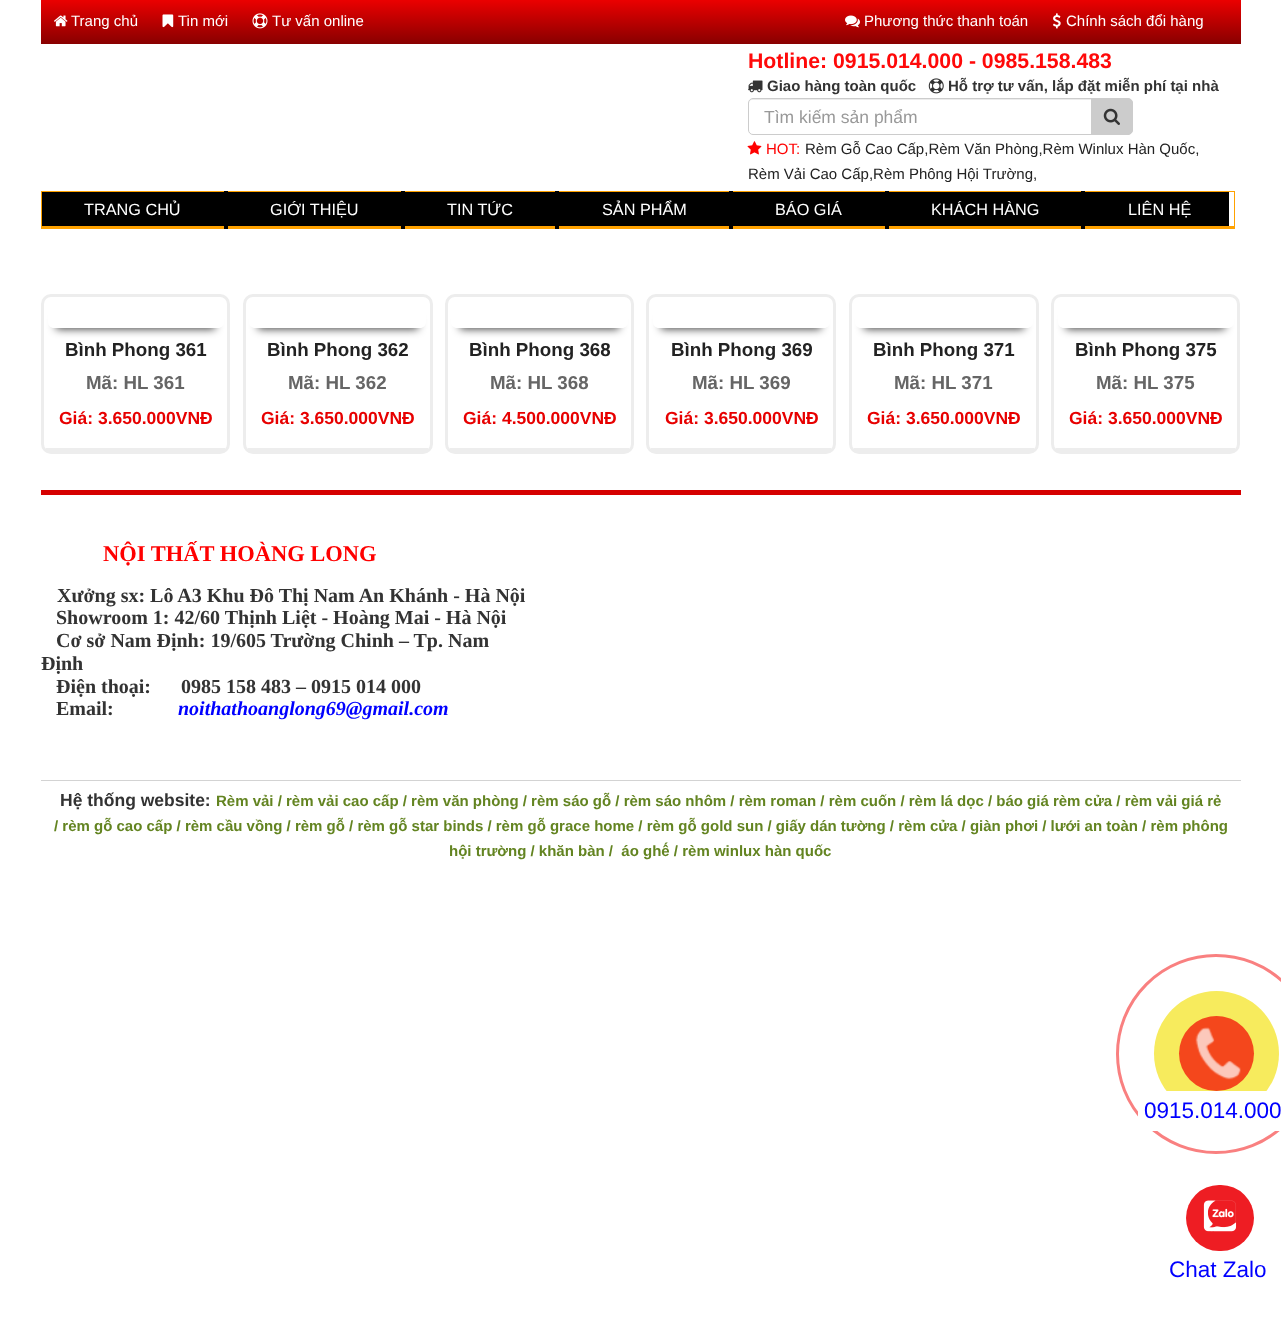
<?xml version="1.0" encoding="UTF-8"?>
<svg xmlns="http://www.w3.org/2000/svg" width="1281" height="1328">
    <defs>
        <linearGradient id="g1" gradientUnits="userSpaceOnUse" x1="641" y1="0" x2="641" y2="44"><stop offset="0" stop-color="#EB0000"/><stop offset="1" stop-color="#880000"/></linearGradient>
        <clipPath id="clip1"><path d="M 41 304 H 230 V 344 H 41 Z M 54 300 H 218 C 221.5 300 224 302.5 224 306 V 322 C 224 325.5 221.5 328 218 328 H 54 C 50.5 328 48 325.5 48 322 V 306 C 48 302.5 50.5 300 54 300 Z" clip-rule="evenodd"/></clipPath>
        <filter id="blur1" x="-50%" y="-200%" width="200%" height="500%"><feGaussianBlur stdDeviation="4.5"/></filter>
        <clipPath id="clip2"><path d="M 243 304 H 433 V 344 H 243 Z M 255 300 H 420 C 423.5 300 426 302.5 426 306 V 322 C 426 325.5 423.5 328 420 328 H 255 C 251.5 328 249 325.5 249 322 V 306 C 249 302.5 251.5 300 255 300 Z" clip-rule="evenodd"/></clipPath>
        <clipPath id="clip3"><path d="M 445 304 H 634 V 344 H 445 Z M 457 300 H 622 C 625.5 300 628 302.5 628 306 V 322 C 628 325.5 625.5 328 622 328 H 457 C 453.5 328 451 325.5 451 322 V 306 C 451 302.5 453.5 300 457 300 Z" clip-rule="evenodd"/></clipPath>
        <clipPath id="clip4"><path d="M 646 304 H 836 V 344 H 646 Z M 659 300 H 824 C 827.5 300 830 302.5 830 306 V 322 C 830 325.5 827.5 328 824 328 H 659 C 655.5 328 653 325.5 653 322 V 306 C 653 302.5 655.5 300 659 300 Z" clip-rule="evenodd"/></clipPath>
        <clipPath id="clip5"><path d="M 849 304 H 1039 V 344 H 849 Z M 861 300 H 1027 C 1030.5 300 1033 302.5 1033 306 V 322 C 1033 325.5 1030.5 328 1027 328 H 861 C 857.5 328 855 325.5 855 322 V 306 C 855 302.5 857.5 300 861 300 Z" clip-rule="evenodd"/></clipPath>
        <clipPath id="clip6"><path d="M 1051 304 H 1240 V 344 H 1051 Z M 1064 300 H 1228 C 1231.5 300 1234 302.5 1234 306 V 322 C 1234 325.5 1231.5 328 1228 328 H 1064 C 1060.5 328 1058 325.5 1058 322 V 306 C 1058 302.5 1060.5 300 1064 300 Z" clip-rule="evenodd"/></clipPath>
    </defs>
    <rect width="100%" height="100%" fill="#FFFFFF"/>
    <rect x="41" y="0" width="1200" height="44" fill="url(#g1)"/>
    <image x="54" y="15" width="14" height="12" href="img_01.png"/>
    <text x="71" y="26" font-family="Liberation Sans" font-size="15" fill="#FFFFFF">Trang chủ</text>
    <image x="162" y="14" width="12" height="14" href="img_02.png"/>
    <text x="178" y="26" font-family="Liberation Sans" font-size="15" fill="#FFFFFF">Tin mới</text>
    <image x="252" y="13" width="16" height="16" href="img_03.png"/>
    <text x="272" y="26" font-family="Liberation Sans" font-size="15" fill="#FFFFFF">Tư vấn online</text>
    <image x="845" y="15" width="15" height="13" href="img_04.png"/>
    <text x="864" y="26" font-family="Liberation Sans" font-size="15" fill="#FFFFFF">Phương thức thanh toán</text>
    <image x="1053" y="13" width="8" height="16" href="img_05.png"/>
    <text x="1066" y="26" font-family="Liberation Sans" font-size="15" fill="#FFFFFF">Chính sách đổi hàng</text>
    <text x="748" y="68" font-family="Liberation Sans" font-size="21.25" font-weight="700" fill="#FF0909">Hotline: 0915.014.000 - 0985.158.483</text>
    <image x="748" y="80" width="15" height="13" href="img_06.png"/>
    <text x="767" y="91" font-family="Liberation Sans" font-size="15" font-weight="700" fill="#333333">Giao hàng toàn quốc</text>
    <image x="928" y="78" width="16" height="16" href="img_07.png"/>
    <text x="948" y="91" font-family="Liberation Sans" font-size="15" font-weight="700" fill="#333333">Hỗ trợ tư vấn, lắp đặt miễn phí tại nhà</text>
    <path d="M 752 100 H 1128 C 1130 100 1131 102 1131 104 C 1131 101 1130 99 1127 99 H 753 C 750 99 749 101 749 104 C 749 102 750 100 752 100 Z" fill="#ECECEC"/>
    <rect x="748.5" y="98.5" width="384" height="36" rx="4.5" fill="none" stroke="#CCCCCC"/>
    <text x="764" y="123" font-family="Liberation Sans" font-size="17.5" fill="#999999">Tìm kiếm sản phẩm</text>
    <path d="M 1091 98 H 1127 C 1130.5 98 1133 100.5 1133 104 V 129 C 1133 132.5 1130.5 135 1127 135 H 1091 Z" fill="#CCCCCC"/>
    <image x="1103" y="108" width="17" height="17" href="img_08.png"/>
    <image x="747" y="141" width="15" height="14" href="img_09.png"/>
    <text x="766" y="154" font-family="Liberation Sans" font-size="15" fill="#FF0000">HOT:</text>
    <text x="805" y="154" font-family="Liberation Sans" font-size="15" fill="#222222">Rèm Gỗ Cao Cấp,Rèm Văn Phòng,Rèm Winlux Hàn Quốc,</text>
    <text x="748" y="179" font-family="Liberation Sans" font-size="15" fill="#222222">Rèm Vải Cao Cấp,Rèm Phông Hội Trường,</text>
    <rect x="42" y="191" width="1187" height="38" fill="#000000"/>
    <rect x="41" y="191" width="183" height="1" fill="#FFA200"/>
    <rect x="41" y="226" width="183" height="3" fill="#FFA200"/>
    <rect x="41" y="191" width="1" height="38" fill="#FFA200"/>
    <text x="84" y="215" font-family="Liberation Sans" font-size="16.25" fill="#FFFFFF">TRANG CHỦ</text>
    <rect x="228" y="191" width="173" height="1" fill="#FFA200"/>
    <rect x="228" y="226" width="173" height="3" fill="#FFA200"/>
    <text x="270" y="215" font-family="Liberation Sans" font-size="16.25" fill="#FFFFFF">GIỚI THIỆU</text>
    <rect x="405" y="191" width="150" height="1" fill="#FFA200"/>
    <rect x="405" y="226" width="150" height="3" fill="#FFA200"/>
    <text x="447" y="215" font-family="Liberation Sans" font-size="16.25" fill="#FFFFFF">TIN TỨC</text>
    <rect x="559" y="191" width="170" height="1" fill="#FFA200"/>
    <rect x="559" y="226" width="170" height="3" fill="#FFA200"/>
    <text x="602" y="215" font-family="Liberation Sans" font-size="16.25" fill="#FFFFFF">SẢN PHẨM</text>
    <rect x="733" y="191" width="152" height="1" fill="#FFA200"/>
    <rect x="733" y="226" width="152" height="3" fill="#FFA200"/>
    <text x="775" y="215" font-family="Liberation Sans" font-size="16.25" fill="#FFFFFF">BÁO GIÁ</text>
    <rect x="889" y="191" width="192" height="1" fill="#FFA200"/>
    <rect x="889" y="226" width="192" height="3" fill="#FFA200"/>
    <text x="931" y="215" font-family="Liberation Sans" font-size="16.25" fill="#FFFFFF">KHÁCH HÀNG</text>
    <rect x="1085" y="191" width="150" height="1" fill="#FFA200"/>
    <rect x="1234" y="191" width="1" height="38" fill="#FFA200"/>
    <rect x="1085" y="226" width="150" height="3" fill="#FFA200"/>
    <text x="1128" y="215" font-family="Liberation Sans" font-size="16.25" fill="#FFFFFF">LIÊN HỆ</text>
    <rect x="42.5" y="295.5" width="186" height="157" rx="8.5" fill="none" stroke="#EDEDED" stroke-width="3"/>
    <rect x="46" y="448" width="179" height="3" fill="#EDEDED"/>
    <g clip-path="url(#clip1)">
        <rect x="56" y="319" width="159" height="10" fill="#000000" fill-opacity="0.75" filter="url(#blur1)"/>
    </g>
    <text x="65" y="356" font-family="Liberation Sans" font-size="18.75" font-weight="700" fill="#222222">Bình Phong 361</text>
    <text x="86" y="389" font-family="Liberation Sans" font-size="18.75" font-weight="700" fill="#666666">Mã: HL 361</text>
    <text x="59" y="424" font-family="Liberation Sans" font-size="17.5" font-weight="700" fill="#E70000">Giá: 3.650.000VNĐ</text>
    <rect x="244.5" y="295.5" width="187" height="157" rx="8.5" fill="none" stroke="#EDEDED" stroke-width="3"/>
    <rect x="248" y="448" width="180" height="3" fill="#EDEDED"/>
    <g clip-path="url(#clip2)">
        <rect x="258" y="319" width="160" height="10" fill="#000000" fill-opacity="0.75" filter="url(#blur1)"/>
    </g>
    <text x="267" y="356" font-family="Liberation Sans" font-size="18.75" font-weight="700" fill="#222222">Bình Phong 362</text>
    <text x="288" y="389" font-family="Liberation Sans" font-size="18.75" font-weight="700" fill="#666666">Mã: HL 362</text>
    <text x="261" y="424" font-family="Liberation Sans" font-size="17.5" font-weight="700" fill="#E70000">Giá: 3.650.000VNĐ</text>
    <rect x="446.5" y="295.5" width="186" height="157" rx="8.5" fill="none" stroke="#EDEDED" stroke-width="3"/>
    <rect x="450" y="448" width="179" height="3" fill="#EDEDED"/>
    <g clip-path="url(#clip3)">
        <rect x="460" y="319" width="159" height="10" fill="#000000" fill-opacity="0.75" filter="url(#blur1)"/>
    </g>
    <text x="469" y="356" font-family="Liberation Sans" font-size="18.75" font-weight="700" fill="#222222">Bình Phong 368</text>
    <text x="490" y="389" font-family="Liberation Sans" font-size="18.75" font-weight="700" fill="#666666">Mã: HL 368</text>
    <text x="463" y="424" font-family="Liberation Sans" font-size="17.5" font-weight="700" fill="#E70000">Giá: 4.500.000VNĐ</text>
    <rect x="647.5" y="295.5" width="187" height="157" rx="8.5" fill="none" stroke="#EDEDED" stroke-width="3"/>
    <rect x="651" y="448" width="180" height="3" fill="#EDEDED"/>
    <g clip-path="url(#clip4)">
        <rect x="661" y="319" width="160" height="10" fill="#000000" fill-opacity="0.75" filter="url(#blur1)"/>
    </g>
    <text x="671" y="356" font-family="Liberation Sans" font-size="18.75" font-weight="700" fill="#222222">Bình Phong 369</text>
    <text x="692" y="389" font-family="Liberation Sans" font-size="18.75" font-weight="700" fill="#666666">Mã: HL 369</text>
    <text x="665" y="424" font-family="Liberation Sans" font-size="17.5" font-weight="700" fill="#E70000">Giá: 3.650.000VNĐ</text>
    <rect x="850.5" y="295.5" width="187" height="157" rx="8.5" fill="none" stroke="#EDEDED" stroke-width="3"/>
    <rect x="854" y="448" width="180" height="3" fill="#EDEDED"/>
    <g clip-path="url(#clip5)">
        <rect x="864" y="319" width="160" height="10" fill="#000000" fill-opacity="0.75" filter="url(#blur1)"/>
    </g>
    <text x="873" y="356" font-family="Liberation Sans" font-size="18.75" font-weight="700" fill="#222222">Bình Phong 371</text>
    <text x="894" y="389" font-family="Liberation Sans" font-size="18.75" font-weight="700" fill="#666666">Mã: HL 371</text>
    <text x="867" y="424" font-family="Liberation Sans" font-size="17.5" font-weight="700" fill="#E70000">Giá: 3.650.000VNĐ</text>
    <rect x="1052.5" y="295.5" width="186" height="157" rx="8.5" fill="none" stroke="#EDEDED" stroke-width="3"/>
    <rect x="1056" y="448" width="179" height="3" fill="#EDEDED"/>
    <g clip-path="url(#clip6)">
        <rect x="1066" y="319" width="159" height="10" fill="#000000" fill-opacity="0.75" filter="url(#blur1)"/>
    </g>
    <text x="1075" y="356" font-family="Liberation Sans" font-size="18.75" font-weight="700" fill="#222222">Bình Phong 375</text>
    <text x="1096" y="389" font-family="Liberation Sans" font-size="18.75" font-weight="700" fill="#666666">Mã: HL 375</text>
    <text x="1069" y="424" font-family="Liberation Sans" font-size="17.5" font-weight="700" fill="#E70000">Giá: 3.650.000VNĐ</text>
    <rect x="41" y="490" width="1200" height="5" fill="#D60000"/>
    <text x="103" y="561" font-family="Liberation Serif" font-size="22.5" font-weight="700" fill="#FF0000">NỘI THẤT HOÀNG LONG</text>
    <text x="57" y="602" font-family="Liberation Serif" font-size="20" font-weight="700" fill="#333333">Xưởng sx: Lô A3 Khu Đô Thị Nam An Khánh - Hà Nội</text>
    <text font-family="Liberation Serif" font-size="20" font-weight="700" fill="#333333">
        <tspan x="56" y="624">Showroom 1: 42/60 Thịnh Liệt - Hoàng Mai - Hà Nội</tspan>
        <tspan x="56" y="647">Cơ sở Nam Định: 19/605 Trường Chinh – Tp. Nam</tspan>
    </text>
    <text x="41" y="670" font-family="Liberation Serif" font-size="20" font-weight="700" fill="#333333">Định</text>
    <text font-family="Liberation Serif" font-size="20" font-weight="700" fill="#333333" xml:space="preserve"><tspan x="56" y="693">Điện thoại:      0985 158 483 – 0915 014 000</tspan><tspan x="56" y="715">Email:</tspan></text>
    <text x="178" y="715" font-family="Liberation Serif" font-size="20" font-weight="700" font-style="italic" fill="#0000FF">noithathoanglong69@gmail.com</text>
    <rect x="41" y="780" width="1200" height="1" fill="#D3D3D3"/>
    <text x="60" y="806" font-family="Liberation Sans" font-size="17.5" font-weight="700" fill="#333333">Hệ thống website:</text>
    <text x="216" y="806" font-family="Liberation Sans" font-size="15" font-weight="700" fill="#638421">Rèm vải / rèm vải cao cấp / rèm văn phòng / rèm sáo gỗ / rèm sáo nhôm / rèm roman / rèm cuốn / rèm lá dọc / báo giá rèm cửa / rèm vải giá rẻ</text>
    <text x="54" y="831" font-family="Liberation Sans" font-size="15" font-weight="700" fill="#638421">/ rèm gỗ cao cấp / rèm cầu vồng / rèm gỗ / rèm gỗ star binds / rèm gỗ grace home / rèm gỗ gold sun / giấy dán tường / rèm cửa / giàn phơi / lưới an toàn / rèm phông</text>
    <text x="449" y="856" font-family="Liberation Sans" font-size="15" font-weight="700" fill="#638421" xml:space="preserve">hội trường / khăn bàn /  áo ghế / rèm winlux hàn quốc</text>
    <circle cx="1216" cy="1054" r="98.5" fill="none" stroke="#F98080" stroke-width="3"/>
    <circle cx="1216.5" cy="1053.5" r="62.5" fill="#F7EB5D"/>
    <circle cx="1216.5" cy="1053.5" r="37.5" fill="#F4471C"/>
    <image x="1195" y="1027" width="46" height="53" href="img_10.png"/>
    <rect x="1138" y="1091" width="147" height="40" rx="4" fill="#FFFFFF"/>
    <text x="1144" y="1118" font-family="Liberation Sans" font-size="22.5" fill="#0000FF">0915.014.000</text>
    <rect x="1186" y="1185" width="68" height="66" rx="33" fill="#EE1D23"/>
    <image x="1203" y="1200" width="34" height="32" href="img_11.png"/>
    <text x="1169" y="1277" font-family="Liberation Sans" font-size="22.5" fill="#0000FF">Chat Zalo</text>
</svg>
